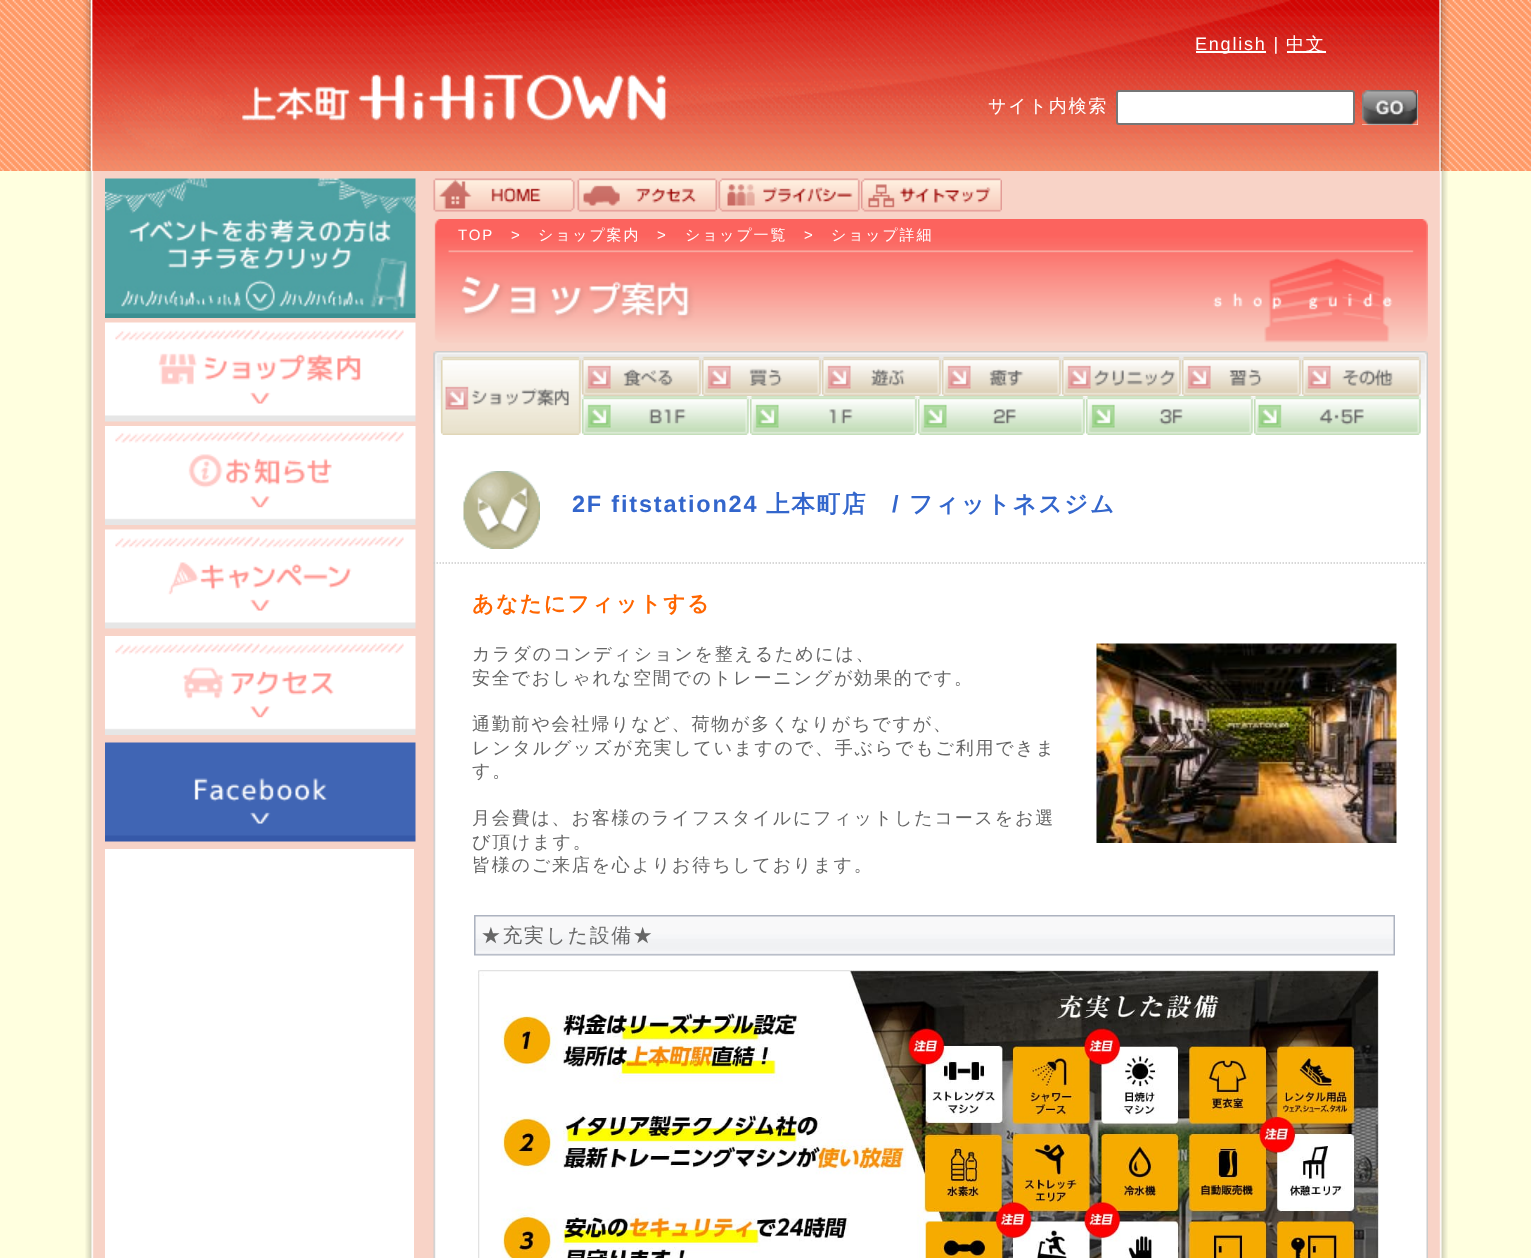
<?xml version="1.0" encoding="UTF-8"?>
<svg xmlns="http://www.w3.org/2000/svg" width="1531" height="1258">
    <rect width="100%" height="100%" fill="#FFFFDF"/>
    <image x="0" y="0" width="1531" height="171" href="img_01.png"/>
    <rect x="1196" y="51" width="70" height="2" fill="#FFFFFF"/>
    <text x="1195" y="50" font-family="Liberation Sans" font-size="18" letter-spacing="1.8" fill="#FFFFFF">English |</text>
    <rect x="1287" y="51" width="39" height="2" fill="#FFFFFF"/>
    <text x="1286" y="50" font-family="WenQuanYi Zen Hei" font-size="18" font-weight="500" letter-spacing="1.8" fill="#FFFFFF">中文</text>
    <text x="988" y="112" font-family="WenQuanYi Zen Hei" font-size="18" font-weight="500" letter-spacing="1.8" fill="#FFFFFF">サイト内検索</text>
    <rect x="1117" y="91" width="237" height="33" rx="2" fill="#FFFFFF" stroke="#767676" stroke-width="2"/>
    <rect x="1362" y="90" width="56" height="35" fill="#FFFFFF"/>
    <image x="1362" y="90" width="56" height="35" href="img_02.png"/>
    <image x="85" y="171" width="1363" height="1087" href="img_03.png"/>
    <image x="105" y="178" width="311" height="140" href="img_04.png"/>
    <image x="105" y="322" width="311" height="100" href="img_05.png"/>
    <image x="105" y="426" width="311" height="99" href="img_06.png"/>
    <image x="105" y="529" width="311" height="100" href="img_07.png"/>
    <image x="105" y="636" width="311" height="99" href="img_08.png"/>
    <image x="105" y="742" width="311" height="100" href="img_09.png"/>
    <rect x="105" y="849" width="309" height="409" fill="#FFFFFF"/>
    <image x="433" y="178" width="142" height="34" href="img_10.png"/>
    <image x="577" y="178" width="141" height="34" href="img_11.png"/>
    <image x="718" y="178" width="142" height="34" href="img_12.png"/>
    <image x="861" y="178" width="141" height="34" href="img_13.png"/>
    <image x="434" y="219" width="994" height="124" href="img_14.png"/>
    <text x="458" y="240" font-family="Liberation Sans" font-size="15" letter-spacing="1.8" fill="#FFFFFF">TOP</text>
    <text x="511" y="240" font-family="Liberation Sans" font-size="15" letter-spacing="1.8" fill="#FFFFFF">&gt;</text>
    <text x="538" y="240" font-family="WenQuanYi Zen Hei" font-size="15" font-weight="500" letter-spacing="1.8" fill="#FFFFFF">ショップ案内</text>
    <text x="657" y="240" font-family="Liberation Sans" font-size="15" letter-spacing="1.8" fill="#FFFFFF">&gt;</text>
    <text x="685" y="240" font-family="WenQuanYi Zen Hei" font-size="15" font-weight="500" letter-spacing="1.8" fill="#FFFFFF">ショップ一覧</text>
    <text x="804" y="240" font-family="Liberation Sans" font-size="15" letter-spacing="1.8" fill="#FFFFFF">&gt;</text>
    <text x="831" y="240" font-family="WenQuanYi Zen Hei" font-size="15" font-weight="500" letter-spacing="1.8" fill="#FFFFFF">ショップ詳細</text>
    <image x="433" y="351" width="995" height="907" href="img_15.png"/>
    <image x="433" y="352" width="995" height="82" href="img_16.png"/>
    <image x="441" y="358" width="140" height="77" href="img_17.png"/>
    <image x="582" y="358" width="119" height="38" href="img_18.png"/>
    <image x="702" y="358" width="119" height="38" href="img_19.png"/>
    <image x="822" y="358" width="119" height="38" href="img_20.png"/>
    <image x="942" y="358" width="119" height="38" href="img_21.png"/>
    <image x="1062" y="358" width="119" height="38" href="img_22.png"/>
    <image x="1182" y="358" width="119" height="38" href="img_23.png"/>
    <image x="1302" y="358" width="119" height="38" href="img_24.png"/>
    <image x="582" y="397" width="167" height="38" href="img_25.png"/>
    <image x="750" y="397" width="167" height="38" href="img_26.png"/>
    <image x="918" y="397" width="167" height="38" href="img_27.png"/>
    <image x="1086" y="397" width="167" height="38" href="img_28.png"/>
    <image x="1254" y="397" width="167" height="38" href="img_29.png"/>
    <path d="M 433.5 563 H 1428" fill="none" stroke="#CCCCCC" stroke-width="1.5" stroke-dasharray="1.5 1.5"/>
    <image x="463" y="471" width="77" height="78" href="img_30.png"/>
    <text x="572" y="512" font-family="Liberation Sans" font-size="23.5" font-weight="700" letter-spacing="1.8" fill="#3366CC">2F fitstation24</text>
    <text x="766" y="512" font-family="WenQuanYi Zen Hei" font-size="23.5" font-weight="700" letter-spacing="1.8" fill="#3366CC">上本町店</text>
    <text x="892" y="512" font-family="Liberation Sans" font-size="23.5" font-weight="700" letter-spacing="1.8" fill="#3366CC">/</text>
    <text x="909" y="512" font-family="WenQuanYi Zen Hei" font-size="23.5" font-weight="700" letter-spacing="1.8" fill="#3366CC">フィットネスジム</text>
    <text x="472" y="611" font-family="WenQuanYi Zen Hei" font-size="21.6" font-weight="700" letter-spacing="1.8" fill="#FF6600">あなたにフィットする</text>
    <text font-family="WenQuanYi Zen Hei" font-size="18" font-weight="500" letter-spacing="1.8" fill="#666666">
        <tspan x="472" y="660">カラダのコンディションを整えるためには、</tspan>
        <tspan x="472" y="684">安全でおしゃれな空間でのトレーニングが効果的です。</tspan>
    </text>
    <text font-family="WenQuanYi Zen Hei" font-size="18" font-weight="500" letter-spacing="1.8" fill="#666666">
        <tspan x="472" y="730">通勤前や会社帰りなど、荷物が多くなりがちですが、</tspan>
        <tspan x="472" y="754">レンタルグッズが充実していますので、手ぶらでもご利用できま</tspan>
        <tspan x="472" y="777">す。</tspan>
    </text>
    <text font-family="WenQuanYi Zen Hei" font-size="18" font-weight="500" letter-spacing="1.8" fill="#666666">
        <tspan x="472" y="824">月会費は、お客様のライフスタイルにフィットしたコースをお選</tspan>
        <tspan x="472" y="848">び頂けます。</tspan>
        <tspan x="472" y="871">皆様のご来店を心よりお待ちしております。</tspan>
    </text>
    <image x="1096" y="643" width="301" height="200" href="img_31.png"/>
    <image x="474" y="915" width="921" height="41" href="img_32.png"/>
    <text x="481" y="942" font-family="WenQuanYi Zen Hei" font-size="19.75" font-weight="500" letter-spacing="1.8" fill="#666666">★充実した設備★</text>
    <image x="478" y="970" width="901" height="288" href="img_33.png"/>
</svg>
